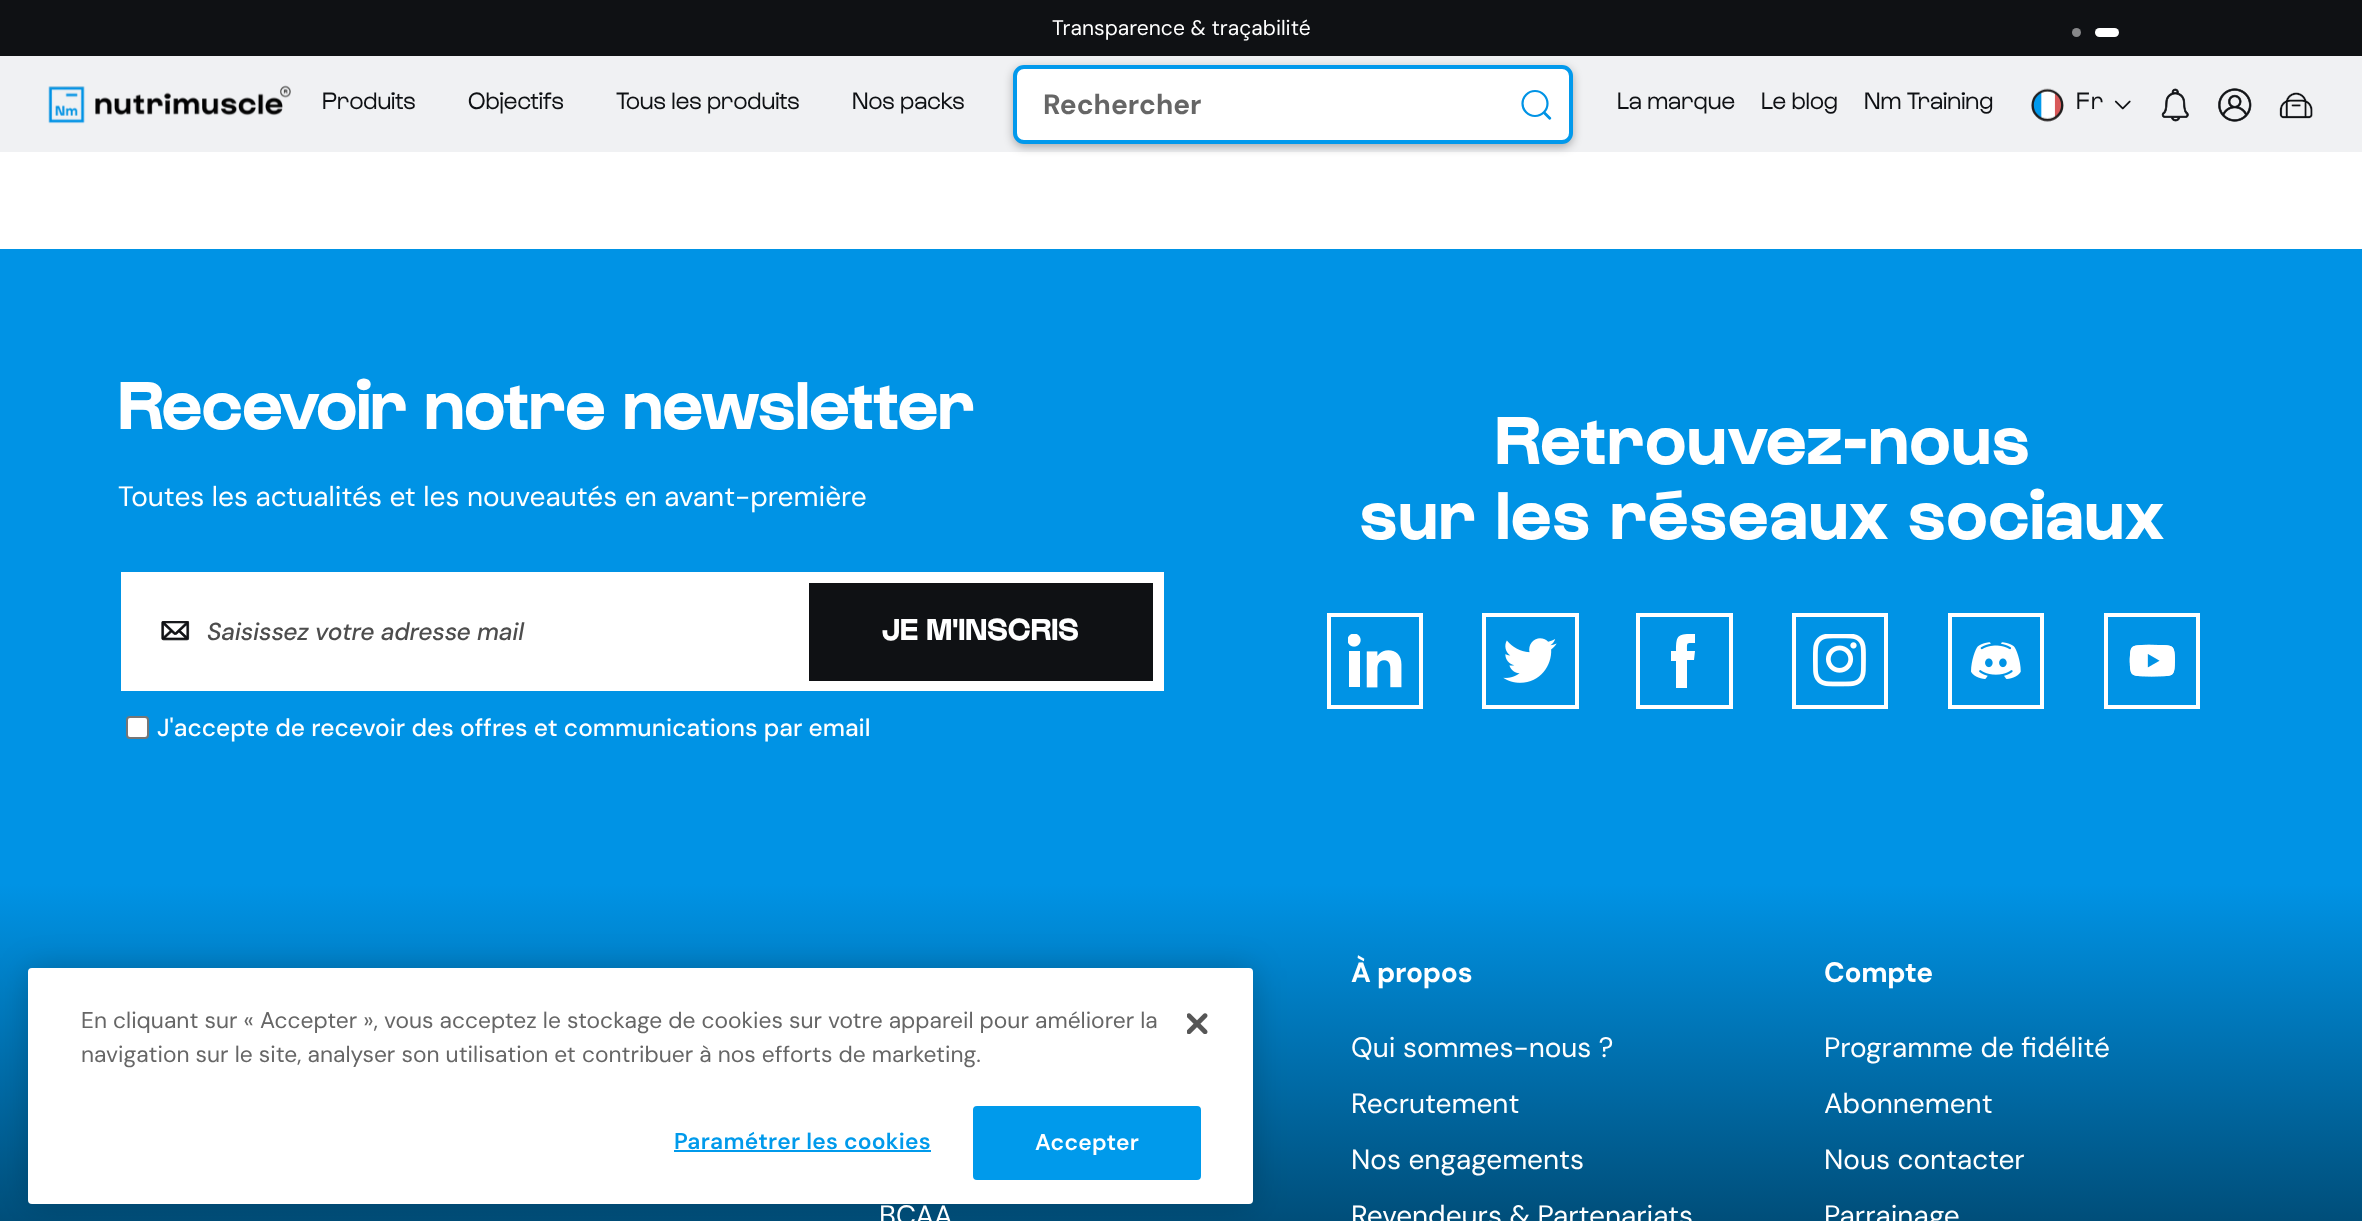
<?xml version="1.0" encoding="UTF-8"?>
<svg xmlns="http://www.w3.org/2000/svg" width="2362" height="1221">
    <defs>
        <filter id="blur1" x="-50%" y="-200%" width="200%" height="500%"><feGaussianBlur stdDeviation="5"/></filter>
        <linearGradient id="g1" gradientUnits="userSpaceOnUse" x1="1181" y1="884" x2="1181" y2="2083"><stop offset="0" stop-color="#0093E5"/><stop offset="0.6" stop-color="#000000"/><stop offset="1" stop-color="#000000"/></linearGradient>
        <filter id="blur2" x="-50%" y="-200%" width="200%" height="500%"><feGaussianBlur stdDeviation="16"/></filter>
    </defs>
    <rect width="100%" height="100%" fill="#FFFFFF"/>
    <rect x="0" y="0" width="2362" height="56" fill="#0F1114"/>
    <text x="1052" y="35" font-family="'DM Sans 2'" font-size="21" fill="#FFFFFF">Transparence &amp; traçabilité</text>
    <circle cx="2076.5" cy="32.5" r="4.5" fill="#87888A"/>
    <rect x="2095" y="28" width="24" height="9" rx="4.5" fill="#FFFFFF"/>
    <rect x="0" y="56" width="2362" height="96" fill="#F0F1F3"/>
    <image x="48" y="85" width="243" height="39" href="img_01.png"/>
    <text x="322" y="109" font-family="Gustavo" font-size="24.5" fill="#0F1114">Produits</text>
    <text x="468" y="109" font-family="Gustavo" font-size="24.5" fill="#0F1114">Objectifs</text>
    <text x="616" y="109" font-family="Gustavo" font-size="24.5" fill="#0F1114">Tous les produits</text>
    <text x="852" y="109" font-family="Gustavo" font-size="24.5" fill="#0F1114">Nos packs</text>
    <rect x="1013" y="68" width="560" height="79" rx="11" fill="#000000" fill-opacity="0.3" filter="url(#blur1)"/>
    <rect x="1015" y="67" width="556" height="75" rx="9" fill="#FFFFFF" stroke="#0199EC" stroke-width="4"/>
    <text x="1043" y="114" font-family="DM Sans" font-size="28" font-weight="700" fill="#666666">Rechercher</text>
    <circle cx="1535" cy="103.5" r="12.5" fill="none" stroke="#0093E5" stroke-width="2.2"/>
    <path d="M 1549 119.5 C 1550 120.5 1552 118.5 1551 117.5 Z M 1543 113.5 L 1549 119.5 L 1551 117.5 L 1545 111.5 Z" fill="#0093E5"/>
    <text x="1617" y="109" font-family="Gustavo" font-size="24.5" fill="#0F1114">La marque</text>
    <text x="1761" y="109" font-family="Gustavo" font-size="24.5" fill="#0F1114">Le blog</text>
    <text x="1864" y="109" font-family="Gustavo" font-size="24.5" fill="#0F1114">Nm Training</text>
    <image x="2031" y="88" width="33" height="34" href="img_02.png"/>
    <text x="2076" y="109" font-family="Gustavo" font-size="24.5" letter-spacing="1" fill="#0F1114">Fr</text>
    <image x="2114" y="100" width="17" height="10" href="img_03.png"/>
    <image x="2161" y="88" width="28" height="34" href="img_04.png"/>
    <image x="2218" y="88" width="34" height="34" href="img_05.png"/>
    <image x="2279" y="92" width="34" height="27" href="img_06.png"/>
    <rect x="0" y="249" width="2362" height="635" fill="#0093E5"/>
    <text x="118" y="429" font-family="Gustavo" font-size="70" font-weight="700" fill="#FFFFFF">Recevoir notre newsletter</text>
    <text x="118" y="506" font-family="DM Sans" font-size="28" fill="#FFFFFF">Toutes les actualités et les nouveautés en avant-première</text>
    <rect x="121" y="572" width="1043" height="119" fill="#FFFFFF"/>
    <image x="161" y="621" width="29" height="20" href="img_07.png"/>
    <text x="207" y="640" font-family="DM Sans" font-size="24.5" font-weight="500" font-style="italic" letter-spacing="-0.25" fill="#4D4D4D">Saisissez votre adresse mail</text>
    <rect x="809" y="583" width="344" height="98" fill="#0F1114"/>
    <text x="882" y="640" font-family="Gustavo" font-size="31.5" font-weight="700" fill="#FFFFFF">JE M'INSCRIS</text>
    <rect x="127" y="717" width="21" height="21" rx="3" fill="#FFFFFF" stroke="#767676" stroke-width="2"/>
    <text x="157" y="736" font-family="DM Sans" font-size="24.5" font-weight="500" fill="#FFFFFF">J'accepte de recevoir des offres et communications par email</text>
    <text x="1495" y="464" font-family="Gustavo" font-size="70" font-weight="700" letter-spacing="1.4" fill="#FFFFFF">Retrouvez-nous</text>
    <text x="1360" y="539" font-family="Gustavo" font-size="70" font-weight="700" letter-spacing="1.4" fill="#FFFFFF">sur les réseaux sociaux</text>
    <rect x="1329" y="615" width="92" height="92" fill="none" stroke="#FFFFFF" stroke-width="4"/>
    <image x="1348" y="634" width="54" height="54" href="img_08.png"/>
    <rect x="1484" y="615" width="93" height="92" fill="none" stroke="#FFFFFF" stroke-width="4"/>
    <image x="1503" y="638" width="54" height="45" href="img_09.png"/>
    <rect x="1638" y="615" width="93" height="92" fill="none" stroke="#FFFFFF" stroke-width="4"/>
    <path d="M 1676 688 H 1687 V 660 H 1694 L 1695 651 H 1687 C 1687 642 1686 643 1695 643 V 634 C 1678 634 1676 634 1676 651 H 1671 V 661 H 1676 Z" fill="#FFFFFF"/>
    <rect x="1794" y="615" width="92" height="92" fill="none" stroke="#FFFFFF" stroke-width="4"/>
    <image x="1813" y="634" width="53" height="53" href="img_10.png"/>
    <rect x="1950" y="615" width="92" height="92" fill="none" stroke="#FFFFFF" stroke-width="4"/>
    <image x="1971" y="642" width="50" height="37" href="img_11.png"/>
    <rect x="2106" y="615" width="92" height="92" fill="none" stroke="#FFFFFF" stroke-width="4"/>
    <image x="2129" y="644" width="46" height="33" href="img_12.png"/>
    <rect x="0" y="884" width="2362" height="337" fill="url(#g1)"/>
    <rect x="28" y="968" width="1225" height="236" rx="4" fill="#000000" fill-opacity="0.2" filter="url(#blur2)"/>
    <rect x="28" y="968" width="1225" height="236" rx="4" fill="#FFFFFF"/>
    <text font-family="'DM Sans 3'" font-size="22.75" fill="#666666">
        <tspan x="81" y="1028">En cliquant sur « Accepter », vous acceptez le stockage de cookies sur votre appareil pour améliorer la</tspan>
        <tspan x="81" y="1062">navigation sur le site, analyser son utilisation et contribuer à nos efforts de marketing.</tspan>
    </text>
    <image x="1187" y="1013" width="21" height="21" href="img_13.png"/>
    <text x="674" y="1149" font-family="DM Sans" font-size="22.75" font-weight="600" letter-spacing="0.25" fill="#009AEB">Paramétrer les cookies</text>
    <rect x="674" y="1150" width="257" height="2" fill="#009AEB"/>
    <rect x="974" y="1107" width="226" height="72" rx="3" fill="#009AEB" stroke="#009AEB" stroke-width="2"/>
    <text x="1035" y="1150" font-family="DM Sans" font-size="22.75" font-weight="600" letter-spacing="0.25" fill="#FFFFFF">Accepter</text>
    <text x="879" y="1225" font-family="DM Sans" font-size="28" fill="#FFFFFF">BCAA</text>
    <text x="1351" y="982" font-family="DM Sans" font-size="28" font-weight="700" letter-spacing="-0.25" fill="#FFFFFF">À propos</text>
    <text x="1351" y="1057" font-family="DM Sans" font-size="28" fill="#FFFFFF">Qui sommes-nous ?</text>
    <text x="1351" y="1113" font-family="DM Sans" font-size="28" fill="#FFFFFF">Recrutement</text>
    <text x="1351" y="1169" font-family="DM Sans" font-size="28" fill="#FFFFFF">Nos engagements</text>
    <text x="1351" y="1225" font-family="DM Sans" font-size="28" fill="#FFFFFF">Revendeurs &amp; Partenariats</text>
    <text x="1824" y="982" font-family="DM Sans" font-size="28" font-weight="700" letter-spacing="-0.25" fill="#FFFFFF">Compte</text>
    <text x="1824" y="1057" font-family="DM Sans" font-size="28" fill="#FFFFFF">Programme de fidélité</text>
    <text x="1824" y="1113" font-family="DM Sans" font-size="28" fill="#FFFFFF">Abonnement</text>
    <text x="1824" y="1169" font-family="DM Sans" font-size="28" fill="#FFFFFF">Nous contacter</text>
    <text x="1824" y="1225" font-family="DM Sans" font-size="28" fill="#FFFFFF">Parrainage</text>
</svg>
